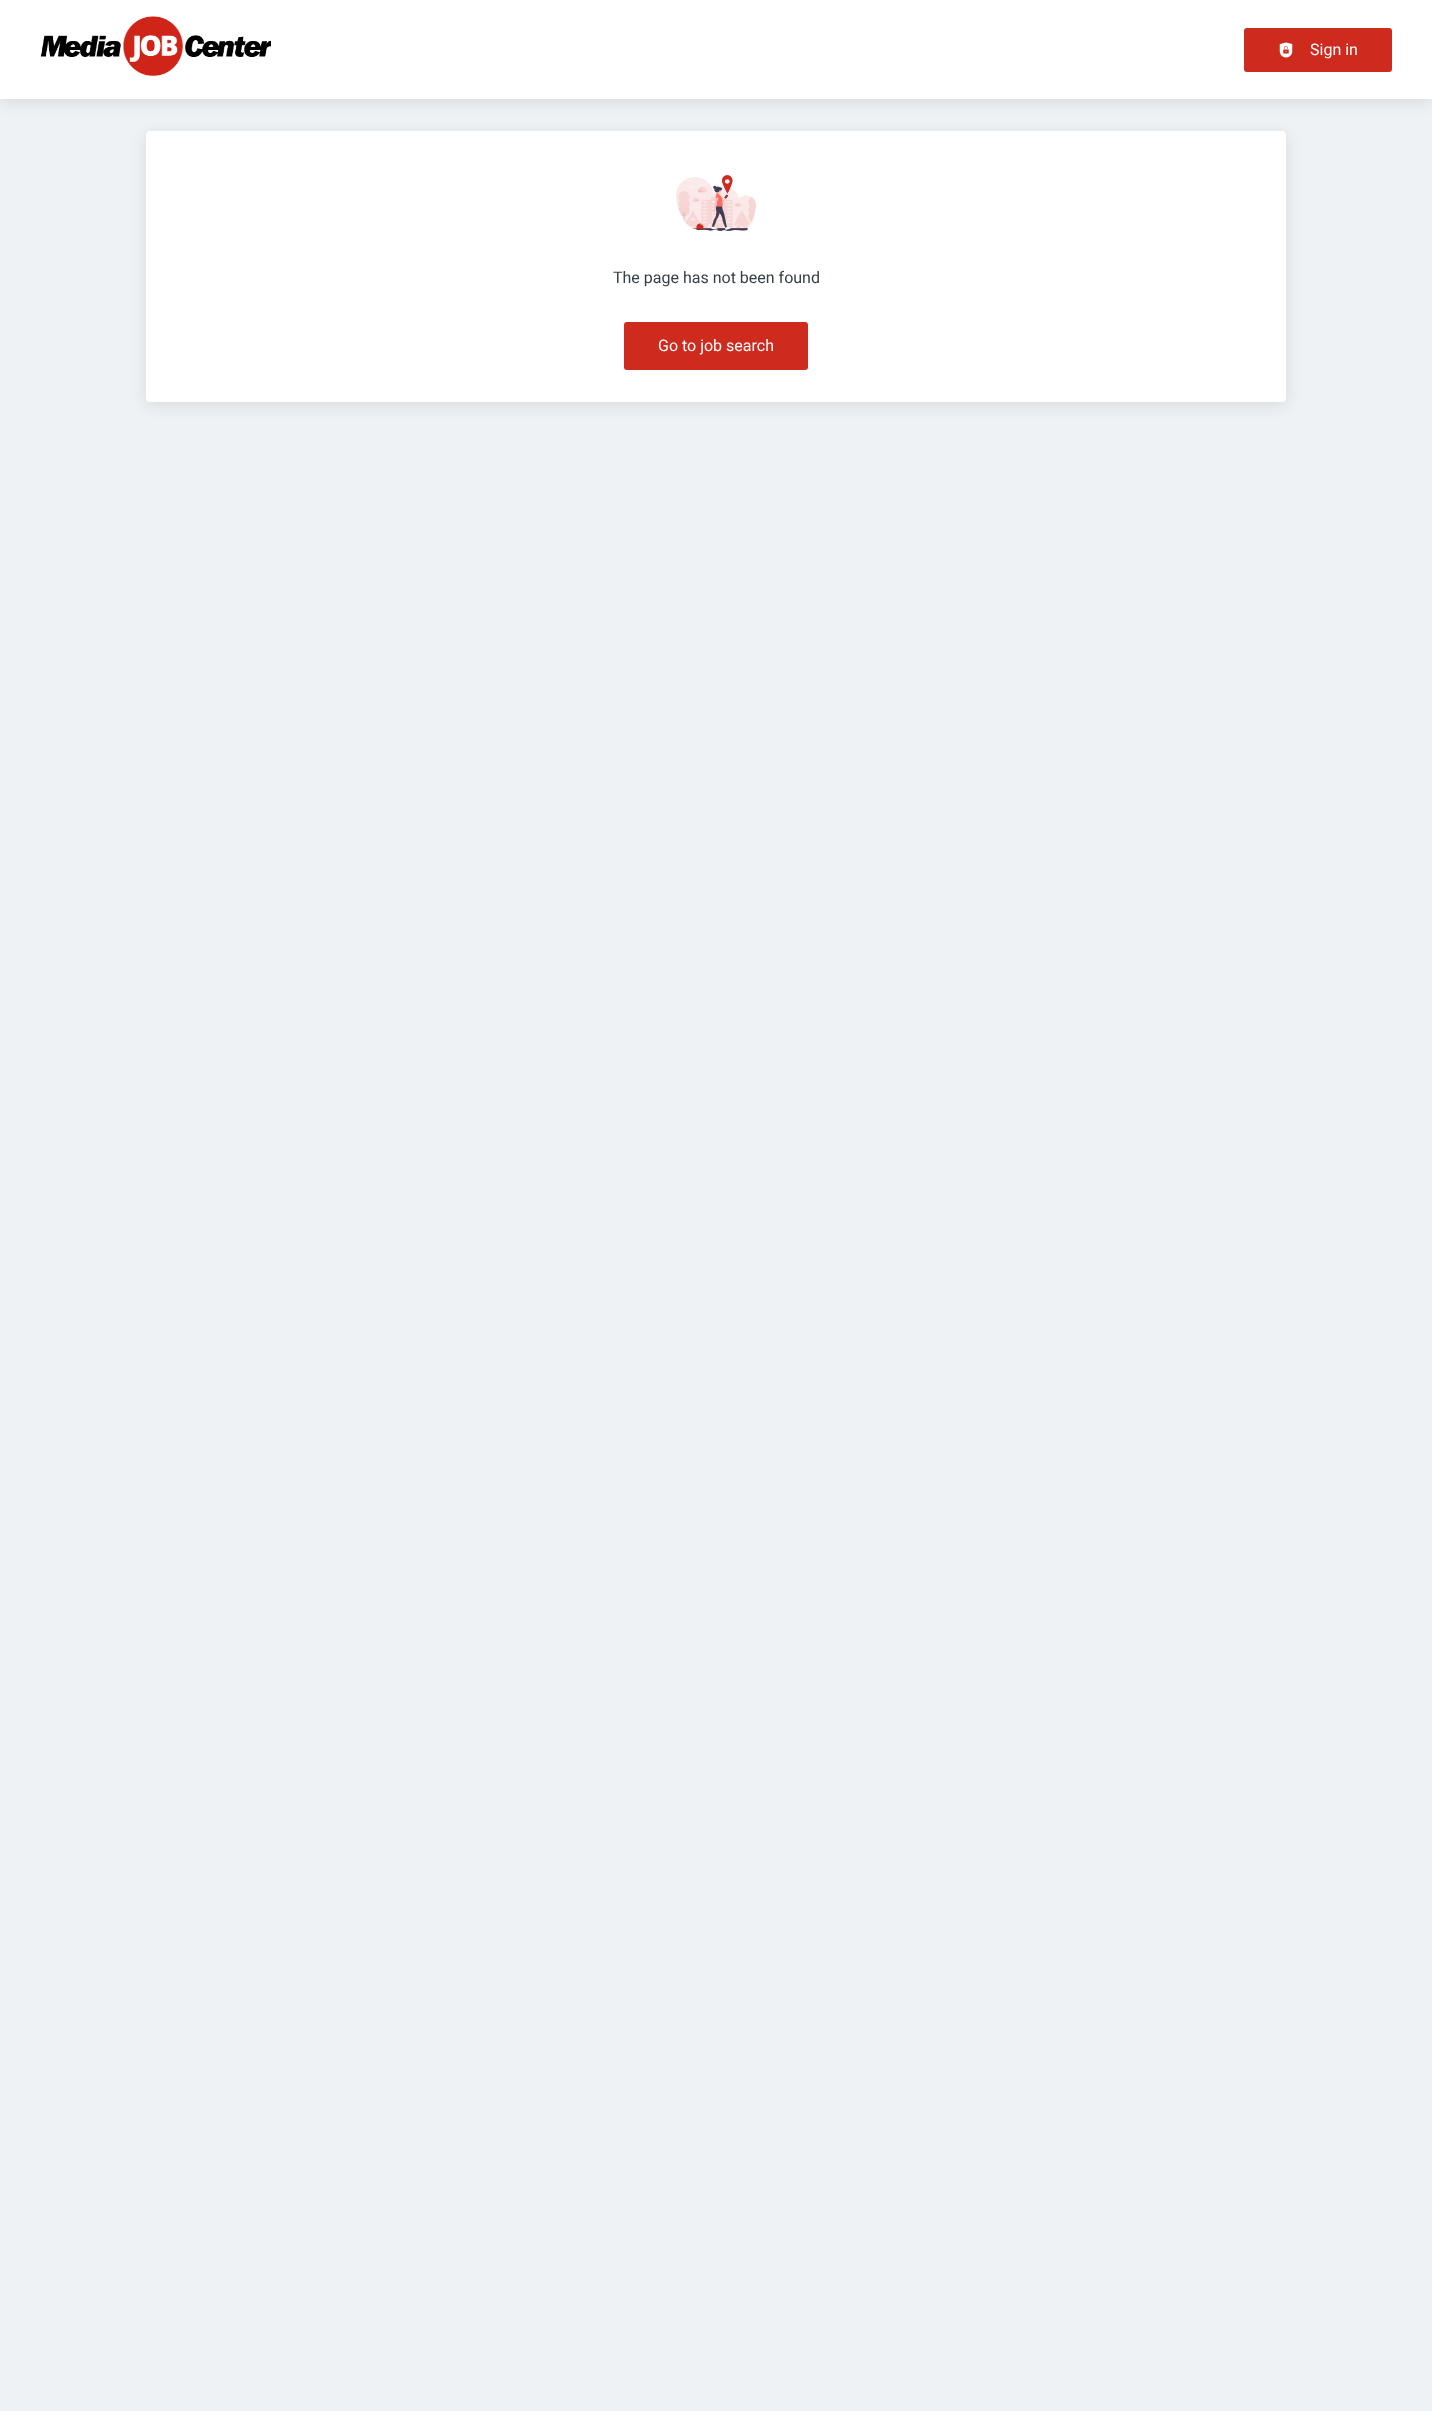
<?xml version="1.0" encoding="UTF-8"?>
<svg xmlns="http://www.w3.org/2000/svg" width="1432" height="2411">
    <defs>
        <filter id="blur1" x="-50%" y="-200%" width="200%" height="500%"><feGaussianBlur stdDeviation="7.5"/></filter>
    </defs>
    <rect width="100%" height="100%" fill="#EFF2F4"/>
    <rect x="0" y="3" width="1432" height="99" fill="#000000" fill-opacity="0.1" filter="url(#blur1)"/>
    <rect x="0" y="0" width="1432" height="99" fill="#FFFFFF"/>
    <image x="40" y="16" width="231" height="60" href="img_01.png"/>
    <rect x="1245" y="29" width="146" height="42" rx="2" fill="#CE2A1E" stroke="#CE2A1E" stroke-width="2"/>
    <image x="1279" y="42" width="14" height="16" href="img_02.png"/>
    <text x="1310" y="55" font-family="Roboto" font-size="16" fill="#FFFFFF">Sign in</text>
    <rect x="146" y="134" width="1140" height="271" rx="4" fill="#000000" fill-opacity="0.1" filter="url(#blur1)"/>
    <rect x="146" y="131" width="1140" height="271" rx="4" fill="#FFFFFF"/>
    <image x="676" y="175" width="80" height="56" href="img_03.png"/>
    <text x="613" y="283" font-family="Roboto" font-size="16" fill="#374047">The page has not been found</text>
    <rect x="625" y="323" width="182" height="46" rx="2" fill="#CE2A1E" stroke="#CE2A1E" stroke-width="2"/>
    <text x="658" y="351" font-family="Roboto" font-size="16" fill="#FFFFFF">Go to job search</text>
</svg>
